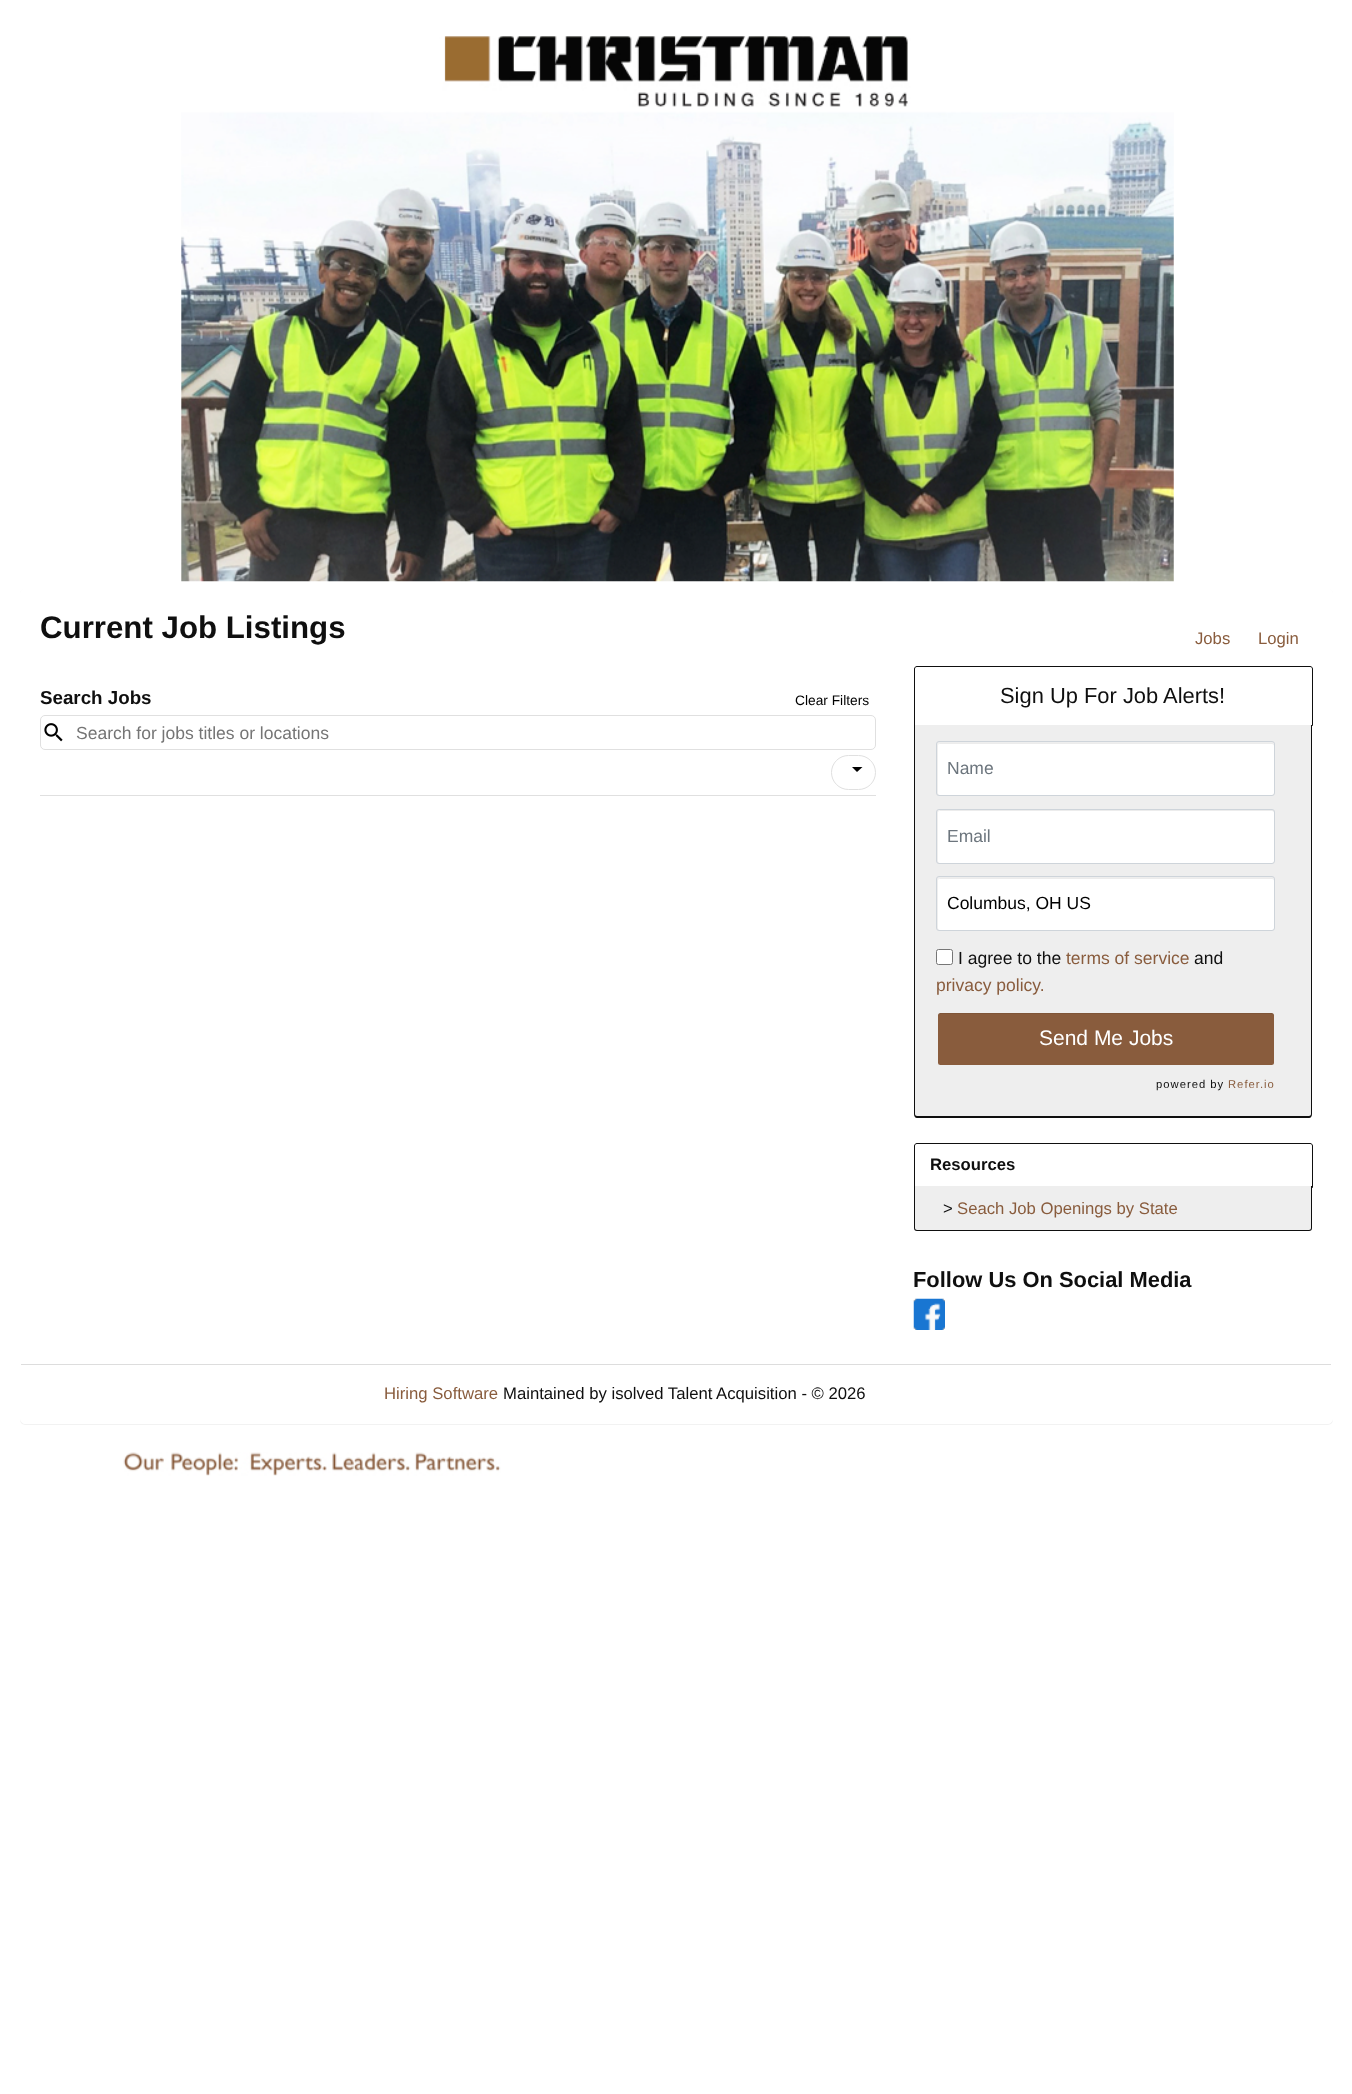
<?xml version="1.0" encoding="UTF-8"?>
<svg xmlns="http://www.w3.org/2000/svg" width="1352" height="2094">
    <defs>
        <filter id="blur1" x="-50%" y="-200%" width="200%" height="500%"><feGaussianBlur stdDeviation="0.5"/></filter>
    </defs>
    <rect width="100%" height="100%" fill="#FFFFFF"/>
    <image x="181" y="36" width="993" height="546" href="img_01.png"/>
    <rect x="20" y="589" width="1313" height="836" rx="5" fill="#000000" fill-opacity="0.05" filter="url(#blur1)"/>
    <rect x="20.5" y="588.5" width="1312" height="835" rx="4.5" fill="#FFFFFF" stroke="#FFFFFF"/>
    <text x="40" y="638" font-family="Liberation Sans" font-size="31.25" font-weight="700" fill="#0F0F0F">Current Job Listings</text>
    <text x="1195" y="644" font-family="Liberation Sans" font-size="16.7" fill="#895C3D">Jobs</text>
    <text x="1258" y="644" font-family="Liberation Sans" font-size="16.7" fill="#895C3D">Login</text>
    <rect x="40" y="795" width="836" height="1" fill="#E0E0E0"/>
    <text x="40" y="704" font-family="Liberation Sans" font-size="18.75" font-weight="700" fill="#0F0F0F">Search Jobs</text>
    <text x="795" y="705" font-family="Liberation Sans" font-size="13.75" fill="#000000">Clear Filters</text>
    <rect x="40.5" y="715.5" width="835" height="34" rx="4.5" fill="none" stroke="#E0E0E0"/>
    <image x="44" y="723" width="19" height="19" href="img_02.png"/>
    <text x="76" y="739" font-family="Liberation Sans" font-size="17.5" fill="#757575">Search for jobs titles or locations</text>
    <rect x="831.5" y="755.5" width="44" height="34" rx="17" fill="none" stroke="#E0E0E0"/>
    <path d="M 852 767 L 857 772 L 862.5 767 Z" fill="#000000"/>
    <path d="M 917 666.5 H 1310 C 1311.5 666.5 1312.5 667.5 1312.5 669 V 725.5 H 914.5 V 669 C 914.5 667.5 915.5 666.5 917 666.5 Z" fill="none" stroke="#0F0F0F"/>
    <text x="1000" y="703" font-family="Liberation Sans" font-size="21.9" fill="#0F0F0F">Sign Up For Job Alerts!</text>
    <path d="M 915 725 H 1311 V 1114 C 1311 1115 1310 1116 1309 1116 H 917 C 916 1116 915 1115 915 1114 Z" fill="#EEEEEE"/>
    <path d="M 914 725 H 1312 V 1114 C 1312 1116 1311 1118 1309 1118 H 917 C 915 1118 914 1116 914 1114 Z M 915 725 H 1311 V 1114 C 1311 1115 1310 1116 1309 1116 H 917 C 916 1116 915 1115 915 1114 Z" fill="#0F0F0F" fill-rule="evenodd"/>
    <rect x="938" y="743" width="336" height="52" rx="2" fill="#FFFFFF"/>
    <path d="M 939 744 H 1272 C 1273 744 1274 745 1274 746 C 1274 745 1274 743 1272 743 H 940 L 938 744 V 746 C 938 745 938 744 939 744 Z" fill="#ECECEC"/>
    <rect x="936.5" y="741.5" width="338" height="54" rx="2.5" fill="none" stroke="#CED4DA"/>
    <text x="947" y="774" font-family="Liberation Sans" font-size="17.5" fill="#6C757D">Name</text>
    <rect x="938" y="810" width="336" height="53" rx="2" fill="#FFFFFF"/>
    <path d="M 939 811 H 1272 C 1273 811 1274 812 1274 813 C 1274 812 1274 810 1272 810 H 940 L 938 811 V 813 C 938 812 938 811 939 811 Z" fill="#ECECEC"/>
    <rect x="936.5" y="809.5" width="338" height="54" rx="2.5" fill="none" stroke="#CED4DA"/>
    <text x="947" y="842" font-family="Liberation Sans" font-size="17.5" fill="#6C757D">Email</text>
    <rect x="938" y="878" width="336" height="52" rx="2" fill="#FFFFFF"/>
    <path d="M 939 879 H 1272 C 1273 879 1274 880 1274 881 C 1274 880 1274 878 1272 878 H 940 L 938 879 V 881 C 938 880 938 879 939 879 Z" fill="#ECECEC"/>
    <rect x="936.5" y="876.5" width="338" height="54" rx="2.5" fill="none" stroke="#CED4DA"/>
    <text x="947" y="909" font-family="Liberation Sans" font-size="17.5" fill="#000000">Columbus, OH US</text>
    <rect x="936.5" y="949.5" width="16" height="15" rx="2" fill="#FFFFFF" stroke="#767676"/>
    <text x="958" y="964" font-family="Liberation Sans" font-size="17.5" fill="#0F0F0F">I agree to the</text>
    <text x="1066" y="964" font-family="Liberation Sans" font-size="17.5" fill="#895C3D">terms of service</text>
    <text x="1194" y="964" font-family="Liberation Sans" font-size="17.5" fill="#0F0F0F">and</text>
    <text x="936" y="991" font-family="Liberation Sans" font-size="17.5" fill="#895C3D">privacy policy.</text>
    <rect x="938" y="1013" width="336" height="52" rx="2.5" fill="#895C3D"/>
    <path d="M 940 1014 H 1271 C 1273 1014 1274 1015 1274 1016 C 1274 1014 1273 1013 1272 1013 H 940 C 939 1013 938 1014 938 1016 C 938 1015 939 1014 940 1014 Z" fill="#000000" fill-opacity="0.07"/>
    <text x="1039" y="1045" font-family="Liberation Sans" font-size="21" fill="#FFFFFF">Send Me Jobs</text>
    <text x="1156" y="1088" font-family="Liberation Sans" font-size="11.25" letter-spacing="1" fill="#0F0F0F">powered by</text>
    <text x="1228" y="1088" font-family="Liberation Sans" font-size="11.25" letter-spacing="1" fill="#895C3D">Refer.io</text>
    <path d="M 917 1143.5 H 1310 C 1311.5 1143.5 1312.5 1144.5 1312.5 1146 V 1187.5 H 914.5 V 1146 C 914.5 1144.5 915.5 1143.5 917 1143.5 Z" fill="none" stroke="#0F0F0F"/>
    <text x="930" y="1170" font-family="Liberation Sans" font-size="16.7" font-weight="700" fill="#0F0F0F">Resources</text>
    <path d="M 915 1186 H 1311 V 1228 C 1311 1229 1310 1230 1309 1230 H 917 C 916 1230 915 1229 915 1228 Z" fill="#EEEEEE"/>
    <path d="M 914 1186 H 1312 V 1228 C 1312 1230 1311 1231 1309 1231 H 917 C 915 1231 914 1230 914 1228 Z M 915 1186 H 1311 V 1228 C 1311 1229 1310 1230 1309 1230 H 917 C 916 1230 915 1229 915 1228 Z" fill="#0F0F0F" fill-rule="evenodd"/>
    <text x="943" y="1214" font-family="Liberation Sans" font-size="16.7" fill="#0F0F0F">&gt;</text>
    <text x="957" y="1214" font-family="Liberation Sans" font-size="16.7" fill="#895C3D">Seach Job Openings by State</text>
    <text x="913" y="1287" font-family="Liberation Sans" font-size="21.9" font-weight="700" fill="#0F0F0F">Follow Us On Social Media</text>
    <image x="913" y="1298" width="32" height="32" href="img_03.png"/>
    <rect x="21" y="1364" width="1310" height="1" fill="#DDDDDD"/>
    <text x="384" y="1399" font-family="Liberation Sans" font-size="16.7" fill="#895C3D">Hiring Software</text>
    <text x="503" y="1399" font-family="Liberation Sans" font-size="16.7" fill="#0F0F0F">Maintained by isolved Talent Acquisition - © 2026</text>
    <image x="123" y="1452" width="378" height="24" href="img_04.png"/>
</svg>
